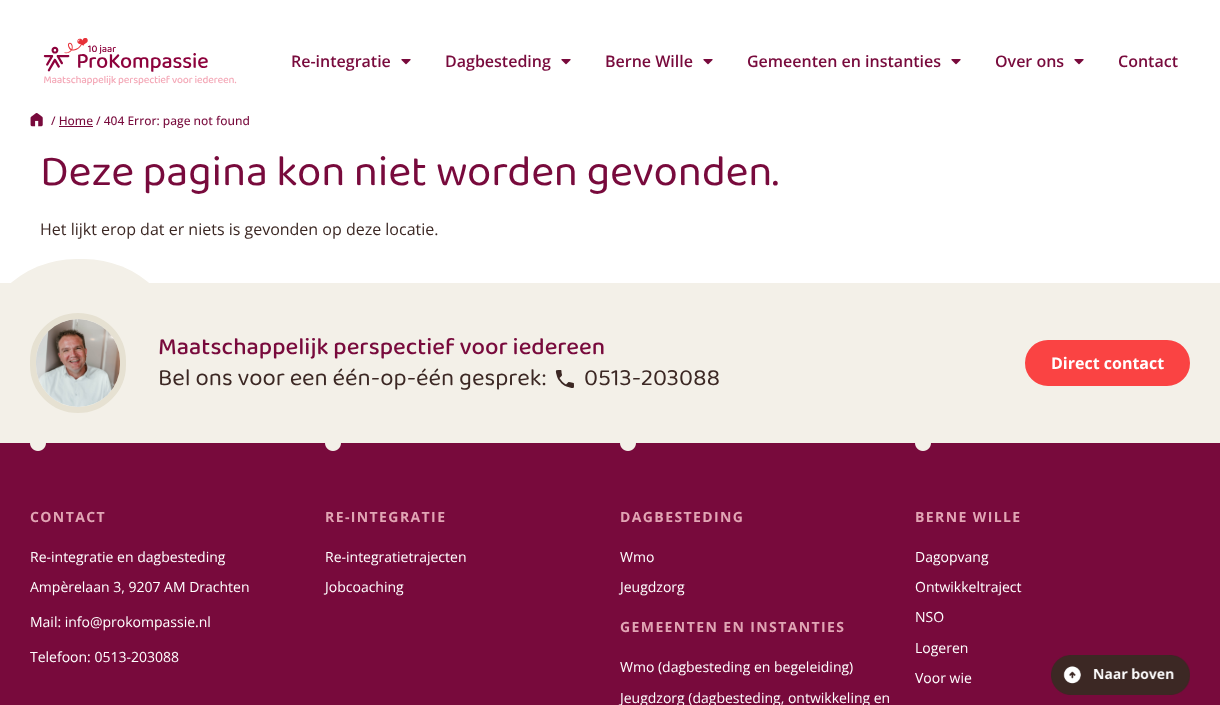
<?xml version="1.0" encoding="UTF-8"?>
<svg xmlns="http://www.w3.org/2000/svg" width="1220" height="705">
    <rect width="100%" height="100%" fill="#FFFFFF"/>
    <image x="43" y="38" width="194" height="47" href="img_01.png"/>
    <text x="291" y="67" font-family="Open Sans" font-size="16" font-weight="600" fill="#780A3C">Re-integratie</text>
    <image x="401" y="59" width="10" height="6" href="img_02.png"/>
    <text x="445" y="67" font-family="Open Sans" font-size="16" font-weight="600" fill="#780A3C">Dagbesteding</text>
    <image x="561" y="59" width="10" height="6" href="img_02.png"/>
    <text x="605" y="67" font-family="Open Sans" font-size="16" font-weight="600" fill="#780A3C">Berne Wille</text>
    <image x="703" y="59" width="10" height="6" href="img_02.png"/>
    <text x="747" y="67" font-family="Open Sans" font-size="16" font-weight="600" fill="#780A3C">Gemeenten en instanties</text>
    <image x="951" y="59" width="10" height="6" href="img_02.png"/>
    <text x="995" y="67" font-family="Open Sans" font-size="16" font-weight="600" fill="#780A3C">Over ons</text>
    <image x="1074" y="59" width="10" height="6" href="img_02.png"/>
    <text x="1118" y="67" font-family="Open Sans" font-size="16" font-weight="600" fill="#780A3C">Contact</text>
    <image x="30" y="113" width="13" height="14" href="img_03.png"/>
    <text x="51" y="125" font-family="Open Sans" font-size="12" font-weight="500" fill="#780A3C">/ Home / 404 Error: page not found</text>
    <rect x="59" y="126" width="34" height="1" fill="#780A3C"/>
    <text x="40" y="185" font-family="'Baloo 2'" font-size="44" letter-spacing="-0.2" fill="#780A3C">Deze pagina kon niet worden gevonden.</text>
    <text x="40" y="235" font-family="Open Sans" font-size="16" fill="#3C2824">Het lijkt erop dat er niets is gevonden op deze locatie.</text>
    <rect x="0" y="283" width="1220" height="160" fill="#F3F0E8"/>
    <rect x="-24" y="259" width="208" height="208" rx="100" fill="#F3F0E8"/>
    <rect x="33" y="316" width="90" height="94" rx="45" fill="none" stroke="#E6E1D2" stroke-width="6"/>
    <image x="36" y="319" width="84" height="88" href="img_04.png"/>
    <text x="158" y="354" font-family="'Baloo 2'" font-size="24" font-weight="500" fill="#780A3C">Maatschappelijk perspectief voor iedereen</text>
    <text x="158" y="385" font-family="'Baloo 2'" font-size="24" fill="#3C2824">Bel ons voor een één-op-één gesprek:</text>
    <path d="M 559.5 378 C 563 374.5 562 376 561.5 372.5 C 561.5 369.5 561.5 370 559 370 C 555.5 370 555.5 370.5 556.5 374.5 C 557 377 558 379.5 560 381.5 C 561.5 384 564 385.5 566.5 386.5 L 571.5 388 C 574 388 574 388 574 385.5 C 574 382.5 574 383 571.5 382.5 C 568 382 569.5 381 566 384.5 C 563.5 383 561 380.5 559.5 378 Z" fill="#3C2824"/>
    <text x="584" y="385" font-family="'Baloo 2'" font-size="24" fill="#3C2824">0513-203088</text>
    <rect x="1026" y="341" width="163" height="44" rx="22" fill="#FA4343" stroke="#FA4343" stroke-width="2"/>
    <text x="1051" y="369" font-family="Open Sans" font-size="16" font-weight="700" fill="#FFFFFF">Direct contact</text>
    <rect x="0" y="443" width="1220" height="262" fill="#780A3C"/>
    <image x="30" y="443" width="16" height="8" href="img_05.png"/>
    <text x="30" y="522" font-family="Open Sans" font-size="14" font-weight="700" letter-spacing="1.4" fill="#E1A5B4">CONTACT</text>
    <text x="30" y="562" font-family="Open Sans" font-size="14" fill="#FFFFFF">Re-integratie en dagbesteding</text>
    <text x="30" y="592" font-family="Open Sans" font-size="14" fill="#FFFFFF">Ampèrelaan 3, 9207 AM Drachten</text>
    <text x="30" y="627" font-family="Open Sans" font-size="14" fill="#FFFFFF">Mail: info@prokompassie.nl</text>
    <text x="30" y="662" font-family="Open Sans" font-size="14" fill="#FFFFFF">Telefoon: 0513-203088</text>
    <image x="325" y="443" width="16" height="8" href="img_05.png"/>
    <text x="325" y="522" font-family="Open Sans" font-size="14" font-weight="700" letter-spacing="1.4" fill="#E1A5B4">RE-INTEGRATIE</text>
    <text x="325" y="562" font-family="Open Sans" font-size="14" fill="#FFFFFF">Re-integratietrajecten</text>
    <text x="325" y="592" font-family="Open Sans" font-size="14" fill="#FFFFFF">Jobcoaching</text>
    <image x="620" y="443" width="16" height="8" href="img_05.png"/>
    <text x="620" y="522" font-family="Open Sans" font-size="14" font-weight="700" letter-spacing="1.4" fill="#E1A5B4">DAGBESTEDING</text>
    <text x="620" y="562" font-family="Open Sans" font-size="14" fill="#FFFFFF">Wmo</text>
    <text x="620" y="592" font-family="Open Sans" font-size="14" fill="#FFFFFF">Jeugdzorg</text>
    <text x="620" y="632" font-family="Open Sans" font-size="14" font-weight="700" letter-spacing="1.4" fill="#E1A5B4">GEMEENTEN EN INSTANTIES</text>
    <text x="620" y="672" font-family="Open Sans" font-size="14" fill="#FFFFFF">Wmo (dagbesteding en begeleiding)</text>
    <text x="620" y="703" font-family="Open Sans" font-size="14" fill="#FFFFFF">Jeugdzorg (dagbesteding, ontwikkeling en</text>
    <image x="915" y="443" width="16" height="8" href="img_05.png"/>
    <text x="915" y="522" font-family="Open Sans" font-size="14" font-weight="700" letter-spacing="1.4" fill="#E1A5B4">BERNE WILLE</text>
    <text x="915" y="562" font-family="Open Sans" font-size="14" fill="#FFFFFF">Dagopvang</text>
    <text x="915" y="592" font-family="Open Sans" font-size="14" fill="#FFFFFF">Ontwikkeltraject</text>
    <text x="915" y="622" font-family="Open Sans" font-size="14" fill="#FFFFFF">NSO</text>
    <text x="915" y="653" font-family="Open Sans" font-size="14" fill="#FFFFFF">Logeren</text>
    <text x="915" y="683" font-family="Open Sans" font-size="14" fill="#FFFFFF">Voor wie</text>
    <image x="1051" y="655" width="139" height="40" href="img_06.png"/>
</svg>
